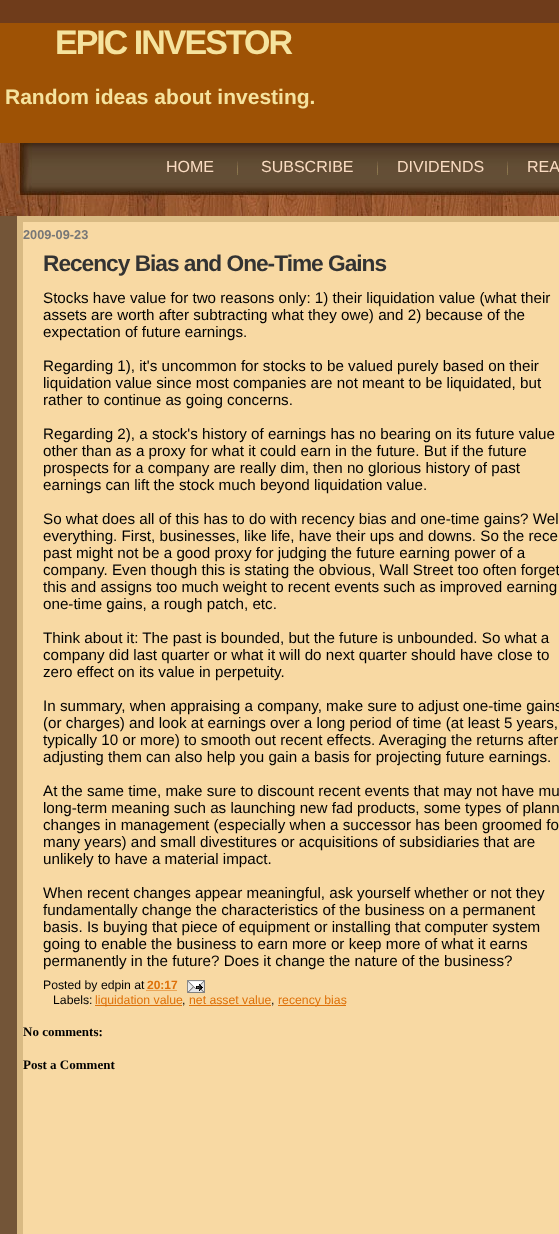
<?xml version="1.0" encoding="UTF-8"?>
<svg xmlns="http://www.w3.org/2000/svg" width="559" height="1234">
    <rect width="100%" height="100%" fill="#6F3C1B"/>
    <rect x="0" y="216" width="17" height="1018" fill="#735538"/>
    <rect x="0" y="23" width="559" height="120" fill="#9E5205"/>
    <text x="55" y="54" font-family="Liberation Sans" font-size="34" font-weight="700" letter-spacing="-2" fill="#F5E39E">EPIC INVESTOR</text>
    <text x="5" y="104" font-family="Liberation Sans" font-size="21" font-weight="700" fill="#F5E39E">Random ideas about investing.</text>
    <image x="0" y="143" width="559" height="73" href="img_01.png"/>
    <text x="166" y="172" font-family="Liberation Sans" font-size="16" fill="#FADCC2">HOME</text>
    <image x="237" y="161" width="1" height="14" href="img_02.png"/>
    <text x="261" y="172" font-family="Liberation Sans" font-size="16" fill="#FADCC2">SUBSCRIBE</text>
    <image x="377" y="161" width="1" height="14" href="img_02.png"/>
    <text x="397" y="172" font-family="Liberation Sans" font-size="16" fill="#FADCC2">DIVIDENDS</text>
    <image x="507" y="161" width="1" height="14" href="img_02.png"/>
    <text x="527" y="172" font-family="Liberation Sans" font-size="16" fill="#FADCC2">REA</text>
    <rect x="20" y="219" width="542" height="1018" fill="#F8D9A3" stroke="#D9BA83" stroke-width="6"/>
    <text x="23" y="239" font-family="Liberation Sans" font-size="12.75" font-weight="700" fill="#777777">2009-09-23</text>
    <text x="43" y="271" font-family="Liberation Sans" font-size="22.7" font-weight="700" letter-spacing="-1" fill="#333333">Recency Bias and One-Time Gains</text>
    <text font-family="Liberation Sans" font-size="15.2" fill="#000000">
        <tspan x="43" y="303">Stocks have value for two reasons only: 1) their liquidation value (what their</tspan>
        <tspan x="43" y="320">assets are worth after subtracting what they owe) and 2) because of the</tspan>
        <tspan x="43" y="337">expectation of future earnings.</tspan>
    </text>
    <text font-family="Liberation Sans" font-size="15.2" fill="#000000">
        <tspan x="43" y="371">Regarding 1), it's uncommon for stocks to be valued purely based on their</tspan>
        <tspan x="43" y="388">liquidation value since most companies are not meant to be liquidated, but</tspan>
        <tspan x="43" y="405">rather to continue as going concerns.</tspan>
    </text>
    <text font-family="Liberation Sans" font-size="15.2" fill="#000000">
        <tspan x="43" y="439">Regarding 2), a stock's history of earnings has no bearing on its future value</tspan>
        <tspan x="43" y="456">other than as a proxy for what it could earn in the future. But if the future</tspan>
        <tspan x="43" y="473">prospects for a company are really dim, then no glorious history of past</tspan>
        <tspan x="43" y="490">earnings can lift the stock much beyond liquidation value.</tspan>
    </text>
    <text font-family="Liberation Sans" font-size="15.2" fill="#000000">
        <tspan x="43" y="524">So what does all of this has to do with recency bias and one-time gains? Wel</tspan>
        <tspan x="43" y="541">everything. First, businesses, like life, have their ups and downs. So the rece</tspan>
        <tspan x="43" y="558">past might not be a good proxy for judging the future earning power of a</tspan>
        <tspan x="43" y="575">company. Even though this is stating the obvious, Wall Street too often forget</tspan>
        <tspan x="43" y="592">this and assigns too much weight to recent events such as improved earning</tspan>
        <tspan x="43" y="609">one-time gains, a rough patch, etc.</tspan>
    </text>
    <text font-family="Liberation Sans" font-size="15.2" fill="#000000">
        <tspan x="43" y="643">Think about it: The past is bounded, but the future is unbounded. So what a</tspan>
        <tspan x="43" y="660">company did last quarter or what it will do next quarter should have close to</tspan>
        <tspan x="43" y="677">zero effect on its value in perpetuity.</tspan>
    </text>
    <text font-family="Liberation Sans" font-size="15.2" fill="#000000">
        <tspan x="43" y="711">In summary, when appraising a company, make sure to adjust one-time gains</tspan>
        <tspan x="43" y="728">(or charges) and look at earnings over a long period of time (at least 5 years,</tspan>
        <tspan x="43" y="745">typically 10 or more) to smooth out recent effects. Averaging the returns after</tspan>
        <tspan x="43" y="762">adjusting them can also help you gain a basis for projecting future earnings.</tspan>
    </text>
    <text font-family="Liberation Sans" font-size="15.2" fill="#000000">
        <tspan x="43" y="796">At the same time, make sure to discount recent events that may not have mu</tspan>
        <tspan x="43" y="813">long-term meaning such as launching new fad products, some types of plann</tspan>
        <tspan x="43" y="830">changes in management (especially when a successor has been groomed fo</tspan>
        <tspan x="43" y="847">many years) and small divestitures or acquisitions of subsidiaries that are</tspan>
        <tspan x="43" y="864">unlikely to have a material impact.</tspan>
    </text>
    <text font-family="Liberation Sans" font-size="15.2" fill="#000000">
        <tspan x="43" y="898">When recent changes appear meaningful, ask yourself whether or not they</tspan>
        <tspan x="43" y="915">fundamentally change the characteristics of the business on a permanent</tspan>
        <tspan x="43" y="932">basis. Is buying that piece of equipment or installing that computer system</tspan>
        <tspan x="43" y="949">going to enable the business to earn more or keep more of what it earns</tspan>
        <tspan x="43" y="966">permanently in the future? Does it change the nature of the business?</tspan>
    </text>
    <text x="43" y="989" font-family="Liberation Sans" font-size="12.25" fill="#000000">Posted by edpin at</text>
    <text x="147" y="989" font-family="Liberation Sans" font-size="12" font-weight="700" fill="#DE7008">20:17</text>
    <path d="M 146.5 990.5 H 177" fill="none" stroke="#DE7008" stroke-dasharray="1 1"/>
    <image x="187" y="980" width="18" height="13" href="img_03.png"/>
    <text x="53" y="1004" font-family="Liberation Sans" font-size="12.25" fill="#000000">Labels:</text>
    <rect x="95" y="1005" width="87" height="1" fill="#DE7008"/>
    <text x="95" y="1004" font-family="Liberation Sans" font-size="12.25" fill="#DE7008">liquidation value</text>
    <text x="182" y="1004" font-family="Liberation Sans" font-size="12.25" fill="#000000">,</text>
    <text x="189" y="1004" font-family="Liberation Sans" font-size="12.25" fill="#DE7008">net asset value</text>
    <text x="271" y="1004" font-family="Liberation Sans" font-size="12.25" fill="#000000">,</text>
    <rect x="189" y="1005" width="82" height="1" fill="#DE7008"/>
    <rect x="278" y="1005" width="68" height="1" fill="#DE7008"/>
    <text x="278" y="1004" font-family="Liberation Sans" font-size="12.25" fill="#DE7008">recency bias</text>
    <text x="23" y="1036" font-family="Liberation Serif" font-size="13" font-weight="700" fill="#000000">No comments:</text>
    <text x="23" y="1069" font-family="Liberation Serif" font-size="13" font-weight="700" fill="#000000">Post a Comment</text>
</svg>
